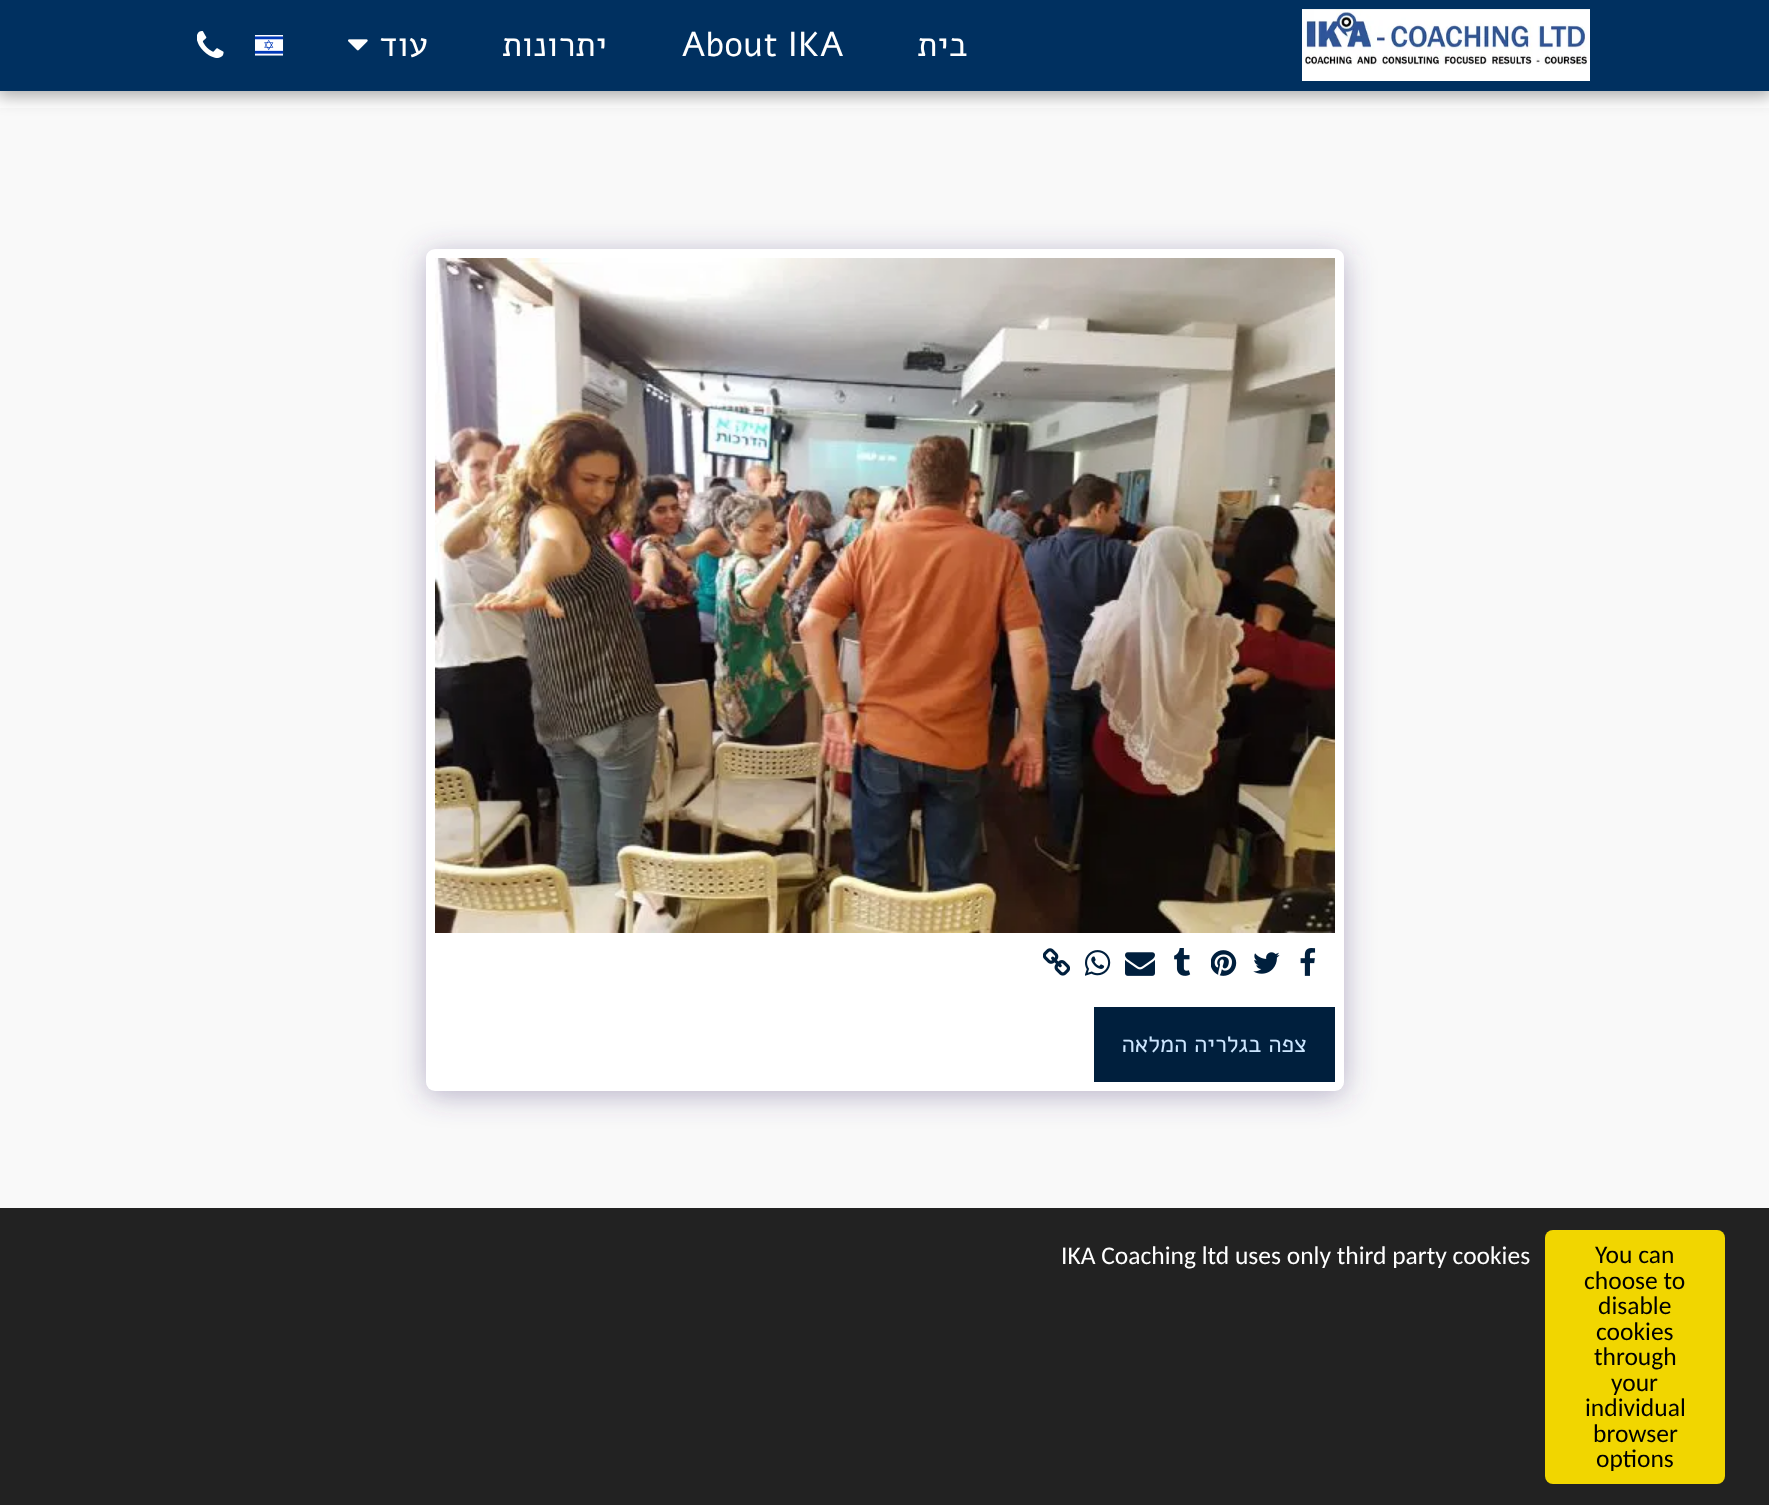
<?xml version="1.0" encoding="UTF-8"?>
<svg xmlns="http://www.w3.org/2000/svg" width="1769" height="1505">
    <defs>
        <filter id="blur1" x="-50%" y="-200%" width="200%" height="500%"><feGaussianBlur stdDeviation="9"/></filter>
        <filter id="blur2" x="-50%" y="-200%" width="200%" height="500%"><feGaussianBlur stdDeviation="15"/></filter>
    </defs>
    <rect width="100%" height="100%" fill="#FFFFFF"/>
    <rect x="0" y="108" width="1769" height="1100" fill="#F9F9F9"/>
    <rect x="-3" y="0" width="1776" height="96" fill="#000000" fill-opacity="0.35" filter="url(#blur1)"/>
    <rect x="0" y="0" width="1769" height="91" fill="#003060"/>
    <image x="197" y="31" width="27" height="27" href="img_01.png"/>
    <image x="255" y="35" width="29" height="21" href="img_02.png"/>
    <image x="348" y="39" width="20" height="12" href="img_03.png"/>
    <text x="428" y="56" font-family="Alef" font-size="34.5" letter-spacing="0.25" direction="rtl" fill="#FFFFFF">עוד</text>
    <text x="607" y="56" font-family="Alef" font-size="34.5" letter-spacing="0.25" direction="rtl" fill="#FFFFFF">יתרונות</text>
    <text x="682" y="56" font-family="Alef" font-size="34.5" letter-spacing="0.25" fill="#FFFFFF">About IKA</text>
    <text x="968" y="56" font-family="Alef" font-size="34.5" letter-spacing="0.25" direction="rtl" fill="#FFFFFF">בית</text>
    <image x="1302" y="9" width="288" height="72" href="img_04.png"/>
    <rect x="426" y="254" width="918" height="841" rx="9" fill="#4D3F7A" fill-opacity="0.4" filter="url(#blur2)"/>
    <rect x="426" y="249" width="918" height="842" rx="9" fill="#FFFFFF"/>
    <image x="435" y="258" width="900" height="675" href="img_05.png"/>
    <image x="1043" y="948" width="27" height="28" href="img_06.png"/>
    <image x="1085" y="950" width="26" height="26" href="img_07.png"/>
    <image x="1125" y="952" width="30" height="24" href="img_08.png"/>
    <image x="1174" y="948" width="17" height="28" href="img_09.png"/>
    <image x="1211" y="950" width="26" height="26" href="img_10.png"/>
    <image x="1253" y="952" width="27" height="22" href="img_11.png"/>
    <image x="1300" y="948" width="16" height="28" href="img_12.png"/>
    <rect x="1094" y="1007" width="241" height="75" fill="#001F3D"/>
    <text x="1307" y="1052" font-family="Alef" font-size="24" direction="rtl" fill="#CCE6FF">צפה בגלריה המלאה</text>
    <rect x="0" y="1208" width="1769" height="297" fill="#222222"/>
    <text x="1061" y="1264" font-family="Carlito" font-size="25.5" fill="#FFFFFF">IKA Coaching ltd uses only third party cookies</text>
    <rect x="1545" y="1230" width="180" height="254" rx="8" fill="#F1D600"/>
    <text x="1595" y="1263" font-family="Carlito" font-size="25.5" fill="#000000">You can</text>
    <text x="1584" y="1289" font-family="Carlito" font-size="25.5" fill="#000000">choose to</text>
    <text x="1598" y="1314" font-family="Carlito" font-size="25.5" fill="#000000">disable</text>
    <text x="1596" y="1340" font-family="Carlito" font-size="25.5" fill="#000000">cookies</text>
    <text x="1594" y="1365" font-family="Carlito" font-size="25.5" fill="#000000">through</text>
    <text x="1611" y="1391" font-family="Carlito" font-size="25.5" fill="#000000">your</text>
    <text x="1585" y="1416" font-family="Carlito" font-size="25.5" fill="#000000">individual</text>
    <text x="1593" y="1442" font-family="Carlito" font-size="25.5" fill="#000000">browser</text>
    <text x="1596" y="1467" font-family="Carlito" font-size="25.5" fill="#000000">options</text>
</svg>
